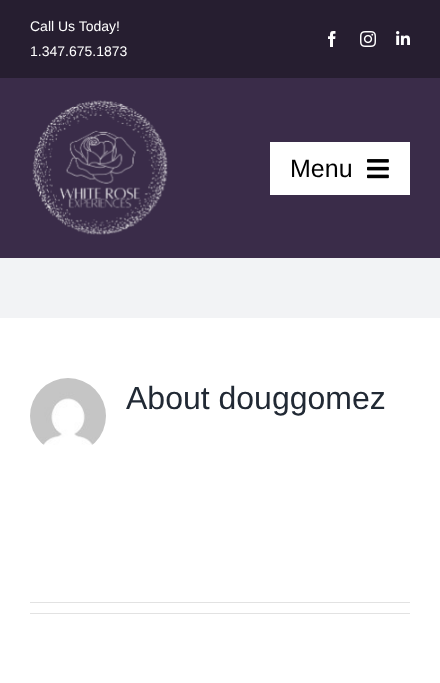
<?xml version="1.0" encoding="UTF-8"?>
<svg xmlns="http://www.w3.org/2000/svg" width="440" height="683">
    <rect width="100%" height="100%" fill="#FFFFFF"/>
    <rect x="0" y="0" width="440" height="78" fill="#261E30"/>
    <text font-family="Liberation Sans" font-size="14" fill="#FFFFFF">
        <tspan x="30" y="31">Call Us Today!</tspan>
        <tspan x="30" y="56">1.347.675.1873</tspan>
    </text>
    <image x="328" y="31" width="8" height="16" href="img_01.png"/>
    <image x="360" y="31" width="16" height="16" href="img_02.png"/>
    <image x="396" y="31" width="14" height="14" href="img_03.png"/>
    <rect x="0" y="78" width="440" height="180" fill="#3A2C49"/>
    <image x="32" y="100" width="136" height="135" href="img_04.png"/>
    <rect x="270" y="142" width="140" height="53" fill="#FFFFFF"/>
    <text x="290" y="177" font-family="Liberation Sans" font-size="25" fill="#000000">Menu</text>
    <image x="367" y="159" width="22" height="20" href="img_05.png"/>
    <rect x="0" y="258" width="440" height="60" fill="#F2F3F5"/>
    <image x="30" y="378" width="76" height="67" href="img_06.png"/>
    <text x="126" y="409" font-family="Liberation Sans" font-size="32" fill="#212934">About douggomez</text>
    <rect x="30" y="602" width="380" height="1" fill="#E2E2E2"/>
    <rect x="30" y="613" width="380" height="1" fill="#E2E2E2"/>
</svg>
